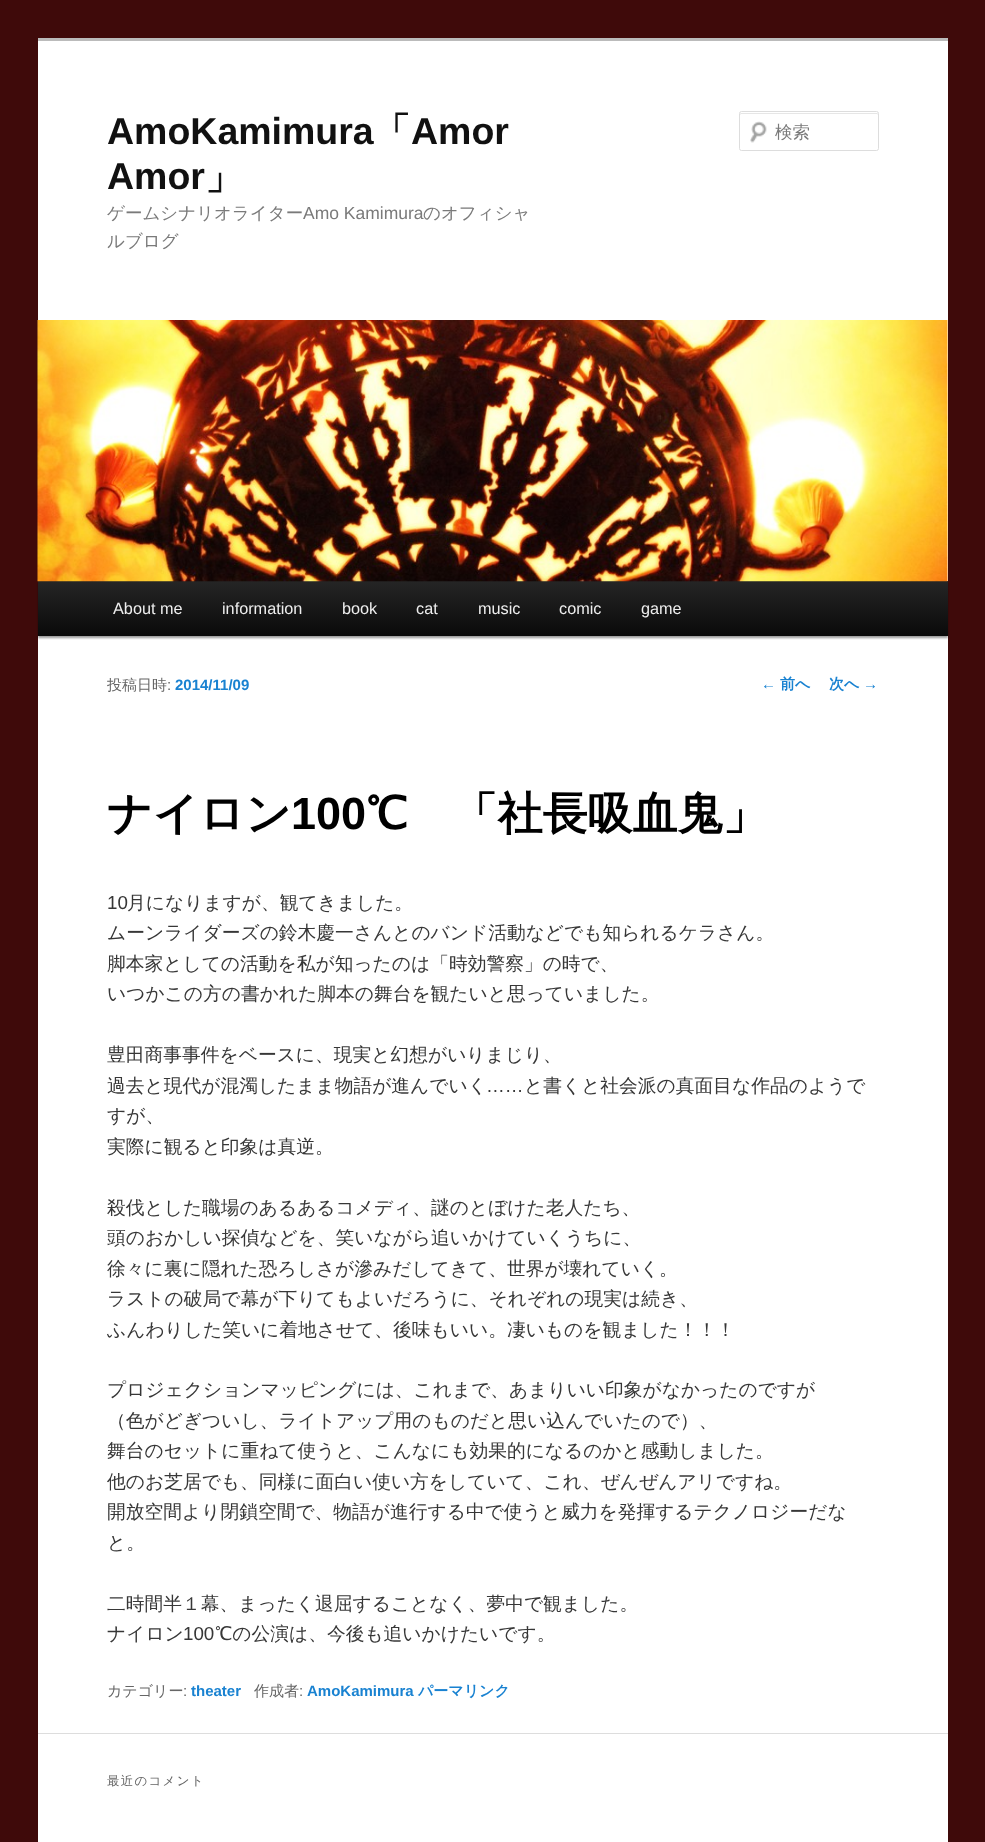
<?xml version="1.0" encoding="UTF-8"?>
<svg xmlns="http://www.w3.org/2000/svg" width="985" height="1842">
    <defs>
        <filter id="blur1" x="-50%" y="-200%" width="200%" height="500%"><feGaussianBlur stdDeviation="1"/></filter>
        <linearGradient id="g1" gradientUnits="userSpaceOnUse" x1="493" y1="581" x2="493" y2="636"><stop offset="0" stop-color="#252525"/><stop offset="1" stop-color="#0A0A0A"/></linearGradient>
    </defs>
    <rect width="100%" height="100%" fill="#3F0A0A"/>
    <rect x="38" y="41" width="910" height="1801" fill="#FFFFFF"/>
    <rect x="38" y="38" width="910" height="3" fill="#BBBBBB"/>
    <text x="107" y="144" font-family="Liberation Sans" font-size="37.5" font-weight="700" fill="#111111">AmoKamimura</text>
    <text x="373" y="144" font-family="WenQuanYi Zen Hei" font-size="37.5" font-weight="700" fill="#111111">「</text>
    <text x="411" y="144" font-family="Liberation Sans" font-size="37.5" font-weight="700" fill="#111111">Amor</text>
    <text x="107" y="189" font-family="Liberation Sans" font-size="37.5" font-weight="700" fill="#111111">Amor</text>
    <text x="205" y="189" font-family="WenQuanYi Zen Hei" font-size="37.5" font-weight="700" fill="#111111">」</text>
    <text x="107" y="219" font-family="WenQuanYi Zen Hei" font-size="17.5" font-weight="500" fill="#7A7A7A">ゲームシナリオライター</text>
    <text x="303" y="219" font-family="Liberation Sans" font-size="17.5" fill="#7A7A7A">Amo Kamimura</text>
    <text x="423" y="219" font-family="WenQuanYi Zen Hei" font-size="17.5" font-weight="500" fill="#7A7A7A">のオフィシャ</text>
    <text x="107" y="247" font-family="WenQuanYi Zen Hei" font-size="17.5" font-weight="500" fill="#7A7A7A">ルブログ</text>
    <image x="750" y="121" width="17" height="22" href="img_01.png"/>
    <path d="M 741 114 H 876 C 877 114 878 114 878 115 C 878 114 878 113 877 113 H 741 C 740 113 740 114 740 115 Z" fill="#E6E6E6"/>
    <rect x="739.5" y="111.5" width="139" height="39" rx="2" fill="none" stroke="#DDDDDD"/>
    <text x="775" y="138" font-family="WenQuanYi Zen Hei" font-size="17.5" font-weight="500" fill="#7A7A7A">検索</text>
    <rect x="38" y="583" width="910" height="55" fill="#000000" fill-opacity="0.4" filter="url(#blur1)"/>
    <rect x="38" y="581" width="910" height="55" fill="url(#g1)"/>
    <image x="37" y="320" width="911" height="262" href="img_02.png"/>
    <text x="113" y="614" font-family="Liberation Sans" font-size="16.25" fill="#EEEEEE">About me</text>
    <text x="222" y="614" font-family="Liberation Sans" font-size="16.25" fill="#EEEEEE">information</text>
    <text x="342" y="614" font-family="Liberation Sans" font-size="16.25" fill="#EEEEEE">book</text>
    <text x="416" y="614" font-family="Liberation Sans" font-size="16.25" fill="#EEEEEE">cat</text>
    <text x="478" y="614" font-family="Liberation Sans" font-size="16.25" fill="#EEEEEE">music</text>
    <text x="559" y="614" font-family="Liberation Sans" font-size="16.25" fill="#EEEEEE">comic</text>
    <text x="641" y="614" font-family="Liberation Sans" font-size="16.25" fill="#EEEEEE">game</text>
    <text x="761" y="689" font-family="Liberation Sans" font-size="15" fill="#1982D1">←</text>
    <text x="780" y="689" font-family="WenQuanYi Zen Hei" font-size="15" font-weight="700" fill="#1982D1">前へ</text>
    <text x="829" y="689" font-family="WenQuanYi Zen Hei" font-size="15" font-weight="700" fill="#1982D1">次へ</text>
    <text x="863" y="689" font-family="Liberation Sans" font-size="15" fill="#1982D1">→</text>
    <text x="107" y="690" font-family="WenQuanYi Zen Hei" font-size="15" font-weight="500" fill="#666666">投稿日時</text>
    <text x="167" y="690" font-family="Liberation Sans" font-size="15" fill="#666666">:</text>
    <text x="175" y="690" font-family="Liberation Sans" font-size="15" font-weight="700" fill="#1982D1">2014/11/09</text>
    <text x="107" y="829" font-family="WenQuanYi Zen Hei" font-size="45" font-weight="700" fill="#000000">ナイロン</text>
    <text x="291" y="829" font-family="Liberation Sans" font-size="45" font-weight="700" fill="#000000">100</text>
    <text x="366" y="829" font-family="WenQuanYi Zen Hei" font-size="45" font-weight="700" fill="#000000">℃　「社長吸血鬼」</text>
    <text x="107" y="909" font-family="Liberation Sans" font-size="18.75" fill="#373737">10</text>
    <text x="127" y="909" font-family="WenQuanYi Zen Hei" font-size="18.75" font-weight="500" fill="#373737">月になりますが、観てきました。</text>
    <text font-family="WenQuanYi Zen Hei" font-size="18.75" font-weight="500" fill="#373737">
        <tspan x="107" y="939">ムーンライダーズの鈴木慶一さんとのバンド活動などでも知られるケラさん。</tspan>
        <tspan x="107" y="970">脚本家としての活動を私が知ったのは「時効警察」の時で、</tspan>
        <tspan x="107" y="1000">いつかこの方の書かれた脚本の舞台を観たいと思っていました。</tspan>
    </text>
    <text font-family="WenQuanYi Zen Hei" font-size="18.75" font-weight="500" fill="#373737">
        <tspan x="107" y="1061">豊田商事事件をベースに、現実と幻想がいりまじり、</tspan>
        <tspan x="107" y="1092">過去と現代が混濁したまま物語が進んでいく</tspan>
    </text>
    <text x="486" y="1092" font-family="Liberation Sans" font-size="18.75" fill="#373737">……</text>
    <text x="524" y="1092" font-family="WenQuanYi Zen Hei" font-size="18.75" font-weight="500" fill="#373737">と書くと社会派の真面目な作品のようで</text>
    <text font-family="WenQuanYi Zen Hei" font-size="18.75" font-weight="500" fill="#373737">
        <tspan x="107" y="1122">すが、</tspan>
        <tspan x="107" y="1153">実際に観ると印象は真逆。</tspan>
    </text>
    <text font-family="WenQuanYi Zen Hei" font-size="18.75" font-weight="500" fill="#373737">
        <tspan x="107" y="1214">殺伐とした職場のあるあるコメディ、謎のとぼけた老人たち、</tspan>
        <tspan x="107" y="1244">頭のおかしい探偵などを、笑いながら追いかけていくうちに、</tspan>
        <tspan x="107" y="1275">徐々に裏に隠れた恐ろしさが滲みだしてきて、世界が壊れていく。</tspan>
        <tspan x="107" y="1305">ラストの破局で幕が下りてもよいだろうに、それぞれの現実は続き、</tspan>
        <tspan x="107" y="1336">ふんわりした笑いに着地させて、後味もいい。凄いものを観ました！！！</tspan>
    </text>
    <text font-family="WenQuanYi Zen Hei" font-size="18.75" font-weight="500" fill="#373737">
        <tspan x="107" y="1396">プロジェクションマッピングには、これまで、あまりいい印象がなかったのですが</tspan>
        <tspan x="107" y="1427">（色がどぎついし、ライトアップ用のものだと思い込んでいたので）、</tspan>
        <tspan x="107" y="1457">舞台のセットに重ねて使うと、こんなにも効果的になるのかと感動しました。</tspan>
        <tspan x="107" y="1488">他のお芝居でも、同様に面白い使い方をしていて、これ、ぜんぜんアリですね。</tspan>
        <tspan x="107" y="1518">開放空間より閉鎖空間で、物語が進行する中で使うと威力を発揮するテクノロジーだな</tspan>
        <tspan x="107" y="1549">と。</tspan>
    </text>
    <text font-family="WenQuanYi Zen Hei" font-size="18.75" font-weight="500" fill="#373737">
        <tspan x="107" y="1610">二時間半１幕、まったく退屈することなく、夢中で観ました。</tspan>
        <tspan x="107" y="1640">ナイロン</tspan>
    </text>
    <text x="183" y="1640" font-family="Liberation Sans" font-size="18.75" fill="#373737">100</text>
    <text x="215" y="1640" font-family="WenQuanYi Zen Hei" font-size="18.75" font-weight="500" fill="#373737">℃の公演は、今後も追いかけたいです。</text>
    <text x="107" y="1696" font-family="WenQuanYi Zen Hei" font-size="15" font-weight="500" fill="#666666">カテゴリー</text>
    <text x="183" y="1696" font-family="Liberation Sans" font-size="15" fill="#666666">:</text>
    <text x="191" y="1696" font-family="Liberation Sans" font-size="15" font-weight="700" fill="#1982D1">theater</text>
    <text x="254" y="1696" font-family="WenQuanYi Zen Hei" font-size="15" font-weight="500" fill="#666666">作成者</text>
    <text x="299" y="1696" font-family="Liberation Sans" font-size="15" fill="#666666">:</text>
    <text x="307" y="1696" font-family="Liberation Sans" font-size="15" font-weight="700" fill="#1982D1">AmoKamimura</text>
    <text x="418" y="1696" font-family="WenQuanYi Zen Hei" font-size="15" font-weight="700" fill="#1982D1">パーマリンク</text>
    <rect x="38" y="1733" width="910" height="1" fill="#DDDDDD"/>
    <text x="107" y="1785" font-family="WenQuanYi Zen Hei" font-size="12.5" font-weight="500" letter-spacing="1.25" fill="#666666">最近のコメント</text>
</svg>
